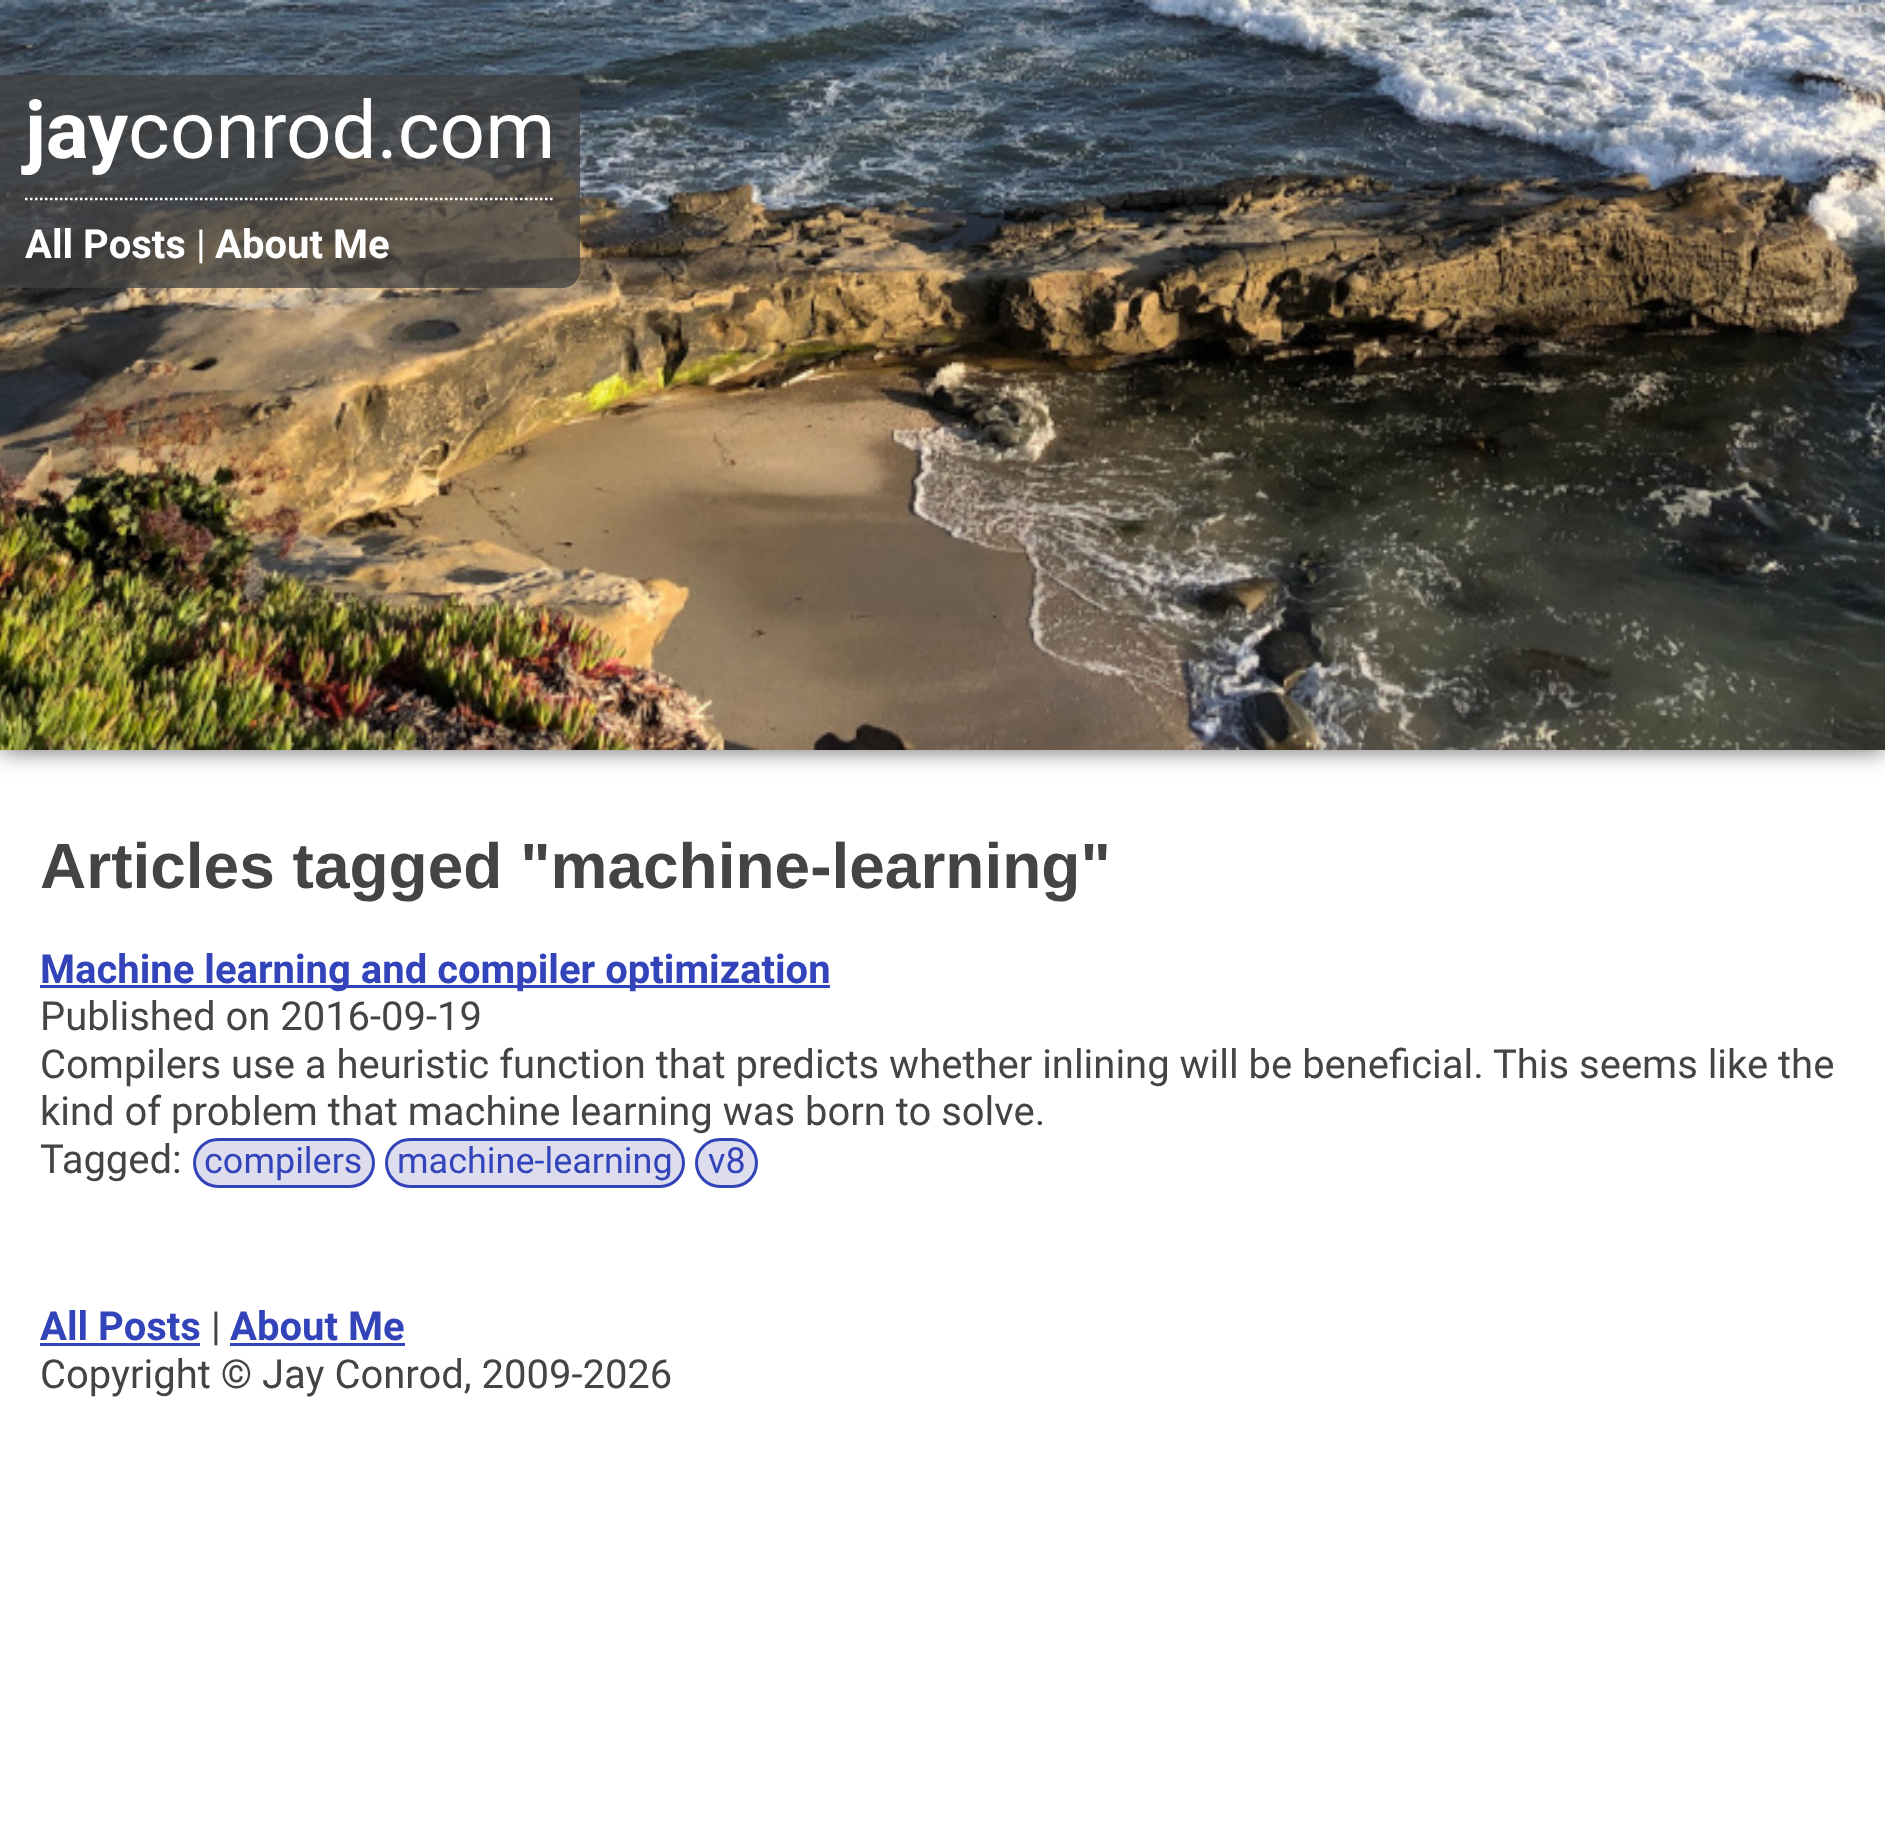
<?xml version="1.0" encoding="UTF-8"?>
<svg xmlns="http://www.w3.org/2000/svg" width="1885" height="1822">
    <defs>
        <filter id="blur1" x="-50%" y="-200%" width="200%" height="500%"><feGaussianBlur stdDeviation="12.5"/></filter>
    </defs>
    <rect width="100%" height="100%" fill="#FFFFFF"/>
    <rect x="0" y="0" width="1885" height="750" fill="#666666" filter="url(#blur1)"/>
    <image x="0" y="0" width="1885" height="750" href="img_01.png"/>
    <path d="M 0 75 H 562 C 572 75 580 83 580 93 V 270 C 580 280 572 288 562 288 H 0 Z" fill="#404040" fill-opacity="0.75"/>
    <path d="M 25 199 H 555" fill="none" stroke="#FFFFFF" stroke-width="2.5" stroke-dasharray="2.5 2.5"/>
    <text x="25" y="158" font-family="Roboto" font-size="80" font-weight="700" fill="#FFFFFF">jay</text>
    <text x="128" y="158" font-family="Roboto" font-size="80" fill="#FFFFFF">conrod.com</text>
    <text x="25" y="258" font-family="Roboto" font-size="40" font-weight="700" fill="#FFFFFF">All Posts</text>
    <text x="196" y="258" font-family="Roboto" font-size="40" fill="#FFFFFF">|</text>
    <text x="215" y="258" font-family="Roboto" font-size="40" font-weight="700" fill="#FFFFFF">About Me</text>
    <text x="40" y="888" font-family="Liberation Sans" font-size="64" font-weight="700" fill="#444444">Articles tagged "machine-learning"</text>
    <rect x="40" y="985" width="790" height="3" fill="#3344BB"/>
    <text x="40" y="983" font-family="Roboto" font-size="40" font-weight="700" fill="#3344BB">Machine learning and compiler optimization</text>
    <text font-family="Roboto" font-size="40" fill="#444444">
        <tspan x="40" y="1030">Published on 2016-09-19</tspan>
        <tspan x="40" y="1078">Compilers use a heuristic function that predicts whether inlining will be beneficial. This seems like the</tspan>
        <tspan x="40" y="1125">kind of problem that machine learning was born to solve.</tspan>
        <tspan x="40" y="1173">Tagged:</tspan>
    </text>
    <rect x="194.5" y="1139.5" width="179" height="47" rx="23.5" fill="#DDDDEE" stroke="#3344BB" stroke-width="3"/>
    <text x="204" y="1173" font-family="Roboto" font-size="36" fill="#3344BB">compilers</text>
    <rect x="386.5" y="1139.5" width="297" height="47" rx="23.5" fill="#DDDDEE" stroke="#3344BB" stroke-width="3"/>
    <text x="397" y="1173" font-family="Roboto" font-size="36" fill="#3344BB">machine-learning</text>
    <rect x="696.5" y="1139.5" width="60" height="47" rx="23.5" fill="#DDDDEE" stroke="#3344BB" stroke-width="3"/>
    <text x="708" y="1173" font-family="Roboto" font-size="36" fill="#3344BB">v8</text>
    <text x="40" y="1340" font-family="Roboto" font-size="40" font-weight="700" fill="#3344BB">All Posts</text>
    <rect x="40" y="1343" width="160" height="3" fill="#3344BB"/>
    <text x="211" y="1340" font-family="Roboto" font-size="40" fill="#444444">|</text>
    <text x="230" y="1340" font-family="Roboto" font-size="40" font-weight="700" fill="#3344BB">About Me</text>
    <rect x="230" y="1343" width="175" height="3" fill="#3344BB"/>
    <text x="40" y="1388" font-family="Roboto" font-size="40" fill="#444444">Copyright © Jay Conrod, 2009-2026</text>
</svg>
